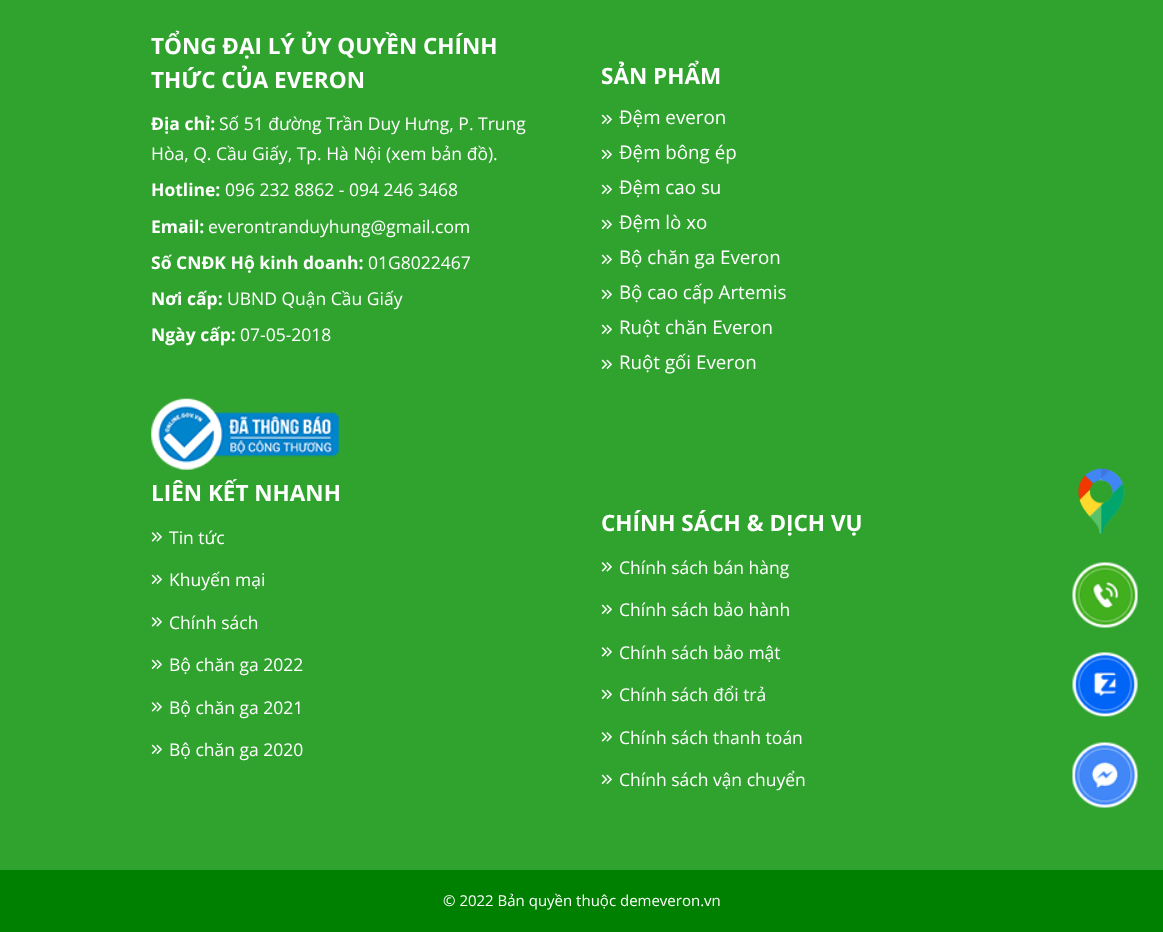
<?xml version="1.0" encoding="UTF-8"?>
<svg xmlns="http://www.w3.org/2000/svg" width="1163" height="932">
    <rect width="100%" height="100%" fill="#30A32F"/>
    <text font-family="Open Sans" font-size="22.5" font-weight="700" fill="#FFFFFF">
        <tspan x="151" y="54">TỔNG ĐẠI LÝ ỦY QUYỀN CHÍNH</tspan>
        <tspan x="151" y="88">THỨC CỦA EVERON</tspan>
    </text>
    <text x="151" y="130" font-family="Open Sans" font-size="17.5" font-weight="700" fill="#FFFFFF">Địa chỉ:</text>
    <text x="219" y="130" font-family="Open Sans" font-size="17.5" fill="#FFFFFF">Số 51 đường Trần Duy Hưng, P. Trung</text>
    <text x="151" y="160" font-family="Open Sans" font-size="17.5" fill="#FFFFFF">Hòa, Q. Cầu Giấy, Tp. Hà Nội (xem bản đồ).</text>
    <text x="151" y="196" font-family="Open Sans" font-size="17.5" font-weight="700" fill="#FFFFFF">Hotline:</text>
    <text x="225" y="196" font-family="Open Sans" font-size="17.5" fill="#FFFFFF">096 232 8862 - 094 246 3468</text>
    <text x="151" y="233" font-family="Open Sans" font-size="17.5" font-weight="700" fill="#FFFFFF">Email:</text>
    <text x="208" y="233" font-family="Open Sans" font-size="17.5" fill="#FFFFFF">everontranduyhung@gmail.com</text>
    <text x="151" y="269" font-family="Open Sans" font-size="17.5" font-weight="700" fill="#FFFFFF">Số CNĐK Hộ kinh doanh:</text>
    <text x="368" y="269" font-family="Open Sans" font-size="17.5" fill="#FFFFFF">01G8022467</text>
    <text x="151" y="305" font-family="Open Sans" font-size="17.5" font-weight="700" fill="#FFFFFF">Nơi cấp:</text>
    <text x="227" y="305" font-family="Open Sans" font-size="17.5" fill="#FFFFFF">UBND Quận Cầu Giấy</text>
    <text x="151" y="341" font-family="Open Sans" font-size="17.5" font-weight="700" fill="#FFFFFF">Ngày cấp:</text>
    <text x="240" y="341" font-family="Open Sans" font-size="17.5" fill="#FFFFFF">07-05-2018</text>
    <image x="151" y="398" width="188" height="72" href="img_01.png"/>
    <text x="601" y="84" font-family="Open Sans" font-size="22.5" font-weight="700" fill="#FFFFFF">SẢN PHẨM</text>
    <image x="601" y="114" width="11" height="10" href="img_02.png"/>
    <text x="619" y="124" font-family="Open Sans" font-size="18.75" fill="#FFFFFF">Đệm everon</text>
    <image x="601" y="149" width="11" height="10" href="img_02.png"/>
    <text x="619" y="159" font-family="Open Sans" font-size="18.75" fill="#FFFFFF">Đệm bông ép</text>
    <image x="601" y="184" width="11" height="10" href="img_02.png"/>
    <text x="619" y="194" font-family="Open Sans" font-size="18.75" fill="#FFFFFF">Đệm cao su</text>
    <image x="601" y="219" width="11" height="10" href="img_02.png"/>
    <text x="619" y="229" font-family="Open Sans" font-size="18.75" fill="#FFFFFF">Đệm lò xo</text>
    <image x="601" y="254" width="11" height="10" href="img_02.png"/>
    <text x="619" y="264" font-family="Open Sans" font-size="18.75" fill="#FFFFFF">Bộ chăn ga Everon</text>
    <image x="601" y="289" width="11" height="10" href="img_02.png"/>
    <text x="619" y="299" font-family="Open Sans" font-size="18.75" fill="#FFFFFF">Bộ cao cấp Artemis</text>
    <image x="601" y="324" width="11" height="10" href="img_02.png"/>
    <text x="619" y="334" font-family="Open Sans" font-size="18.75" fill="#FFFFFF">Ruột chăn Everon</text>
    <image x="601" y="359" width="11" height="10" href="img_02.png"/>
    <text x="619" y="369" font-family="Open Sans" font-size="18.75" fill="#FFFFFF">Ruột gối Everon</text>
    <text x="151" y="501" font-family="Open Sans" font-size="22.5" font-weight="700" fill="#FFFFFF">LIÊN KẾT NHANH</text>
    <image x="151" y="532" width="11" height="10" href="img_03.png"/>
    <text x="169" y="544" font-family="Open Sans" font-size="17.5" fill="#FFFFFF">Tin tức</text>
    <image x="151" y="574" width="11" height="10" href="img_02.png"/>
    <text x="169" y="586" font-family="Open Sans" font-size="17.5" fill="#FFFFFF">Khuyến mại</text>
    <image x="151" y="617" width="11" height="10" href="img_03.png"/>
    <text x="169" y="629" font-family="Open Sans" font-size="17.5" fill="#FFFFFF">Chính sách</text>
    <image x="151" y="659" width="11" height="10" href="img_02.png"/>
    <text x="169" y="671" font-family="Open Sans" font-size="17.5" fill="#FFFFFF">Bộ chăn ga 2022</text>
    <image x="151" y="702" width="11" height="10" href="img_03.png"/>
    <text x="169" y="714" font-family="Open Sans" font-size="17.5" fill="#FFFFFF">Bộ chăn ga 2021</text>
    <image x="151" y="744" width="11" height="10" href="img_02.png"/>
    <text x="169" y="756" font-family="Open Sans" font-size="17.5" fill="#FFFFFF">Bộ chăn ga 2020</text>
    <text x="601" y="531" font-family="Open Sans" font-size="22.5" font-weight="700" fill="#FFFFFF">CHÍNH SÁCH &amp; DỊCH VỤ</text>
    <image x="601" y="562" width="11" height="10" href="img_03.png"/>
    <text x="619" y="574" font-family="Open Sans" font-size="17.5" fill="#FFFFFF">Chính sách bán hàng</text>
    <image x="601" y="604" width="11" height="10" href="img_02.png"/>
    <text x="619" y="616" font-family="Open Sans" font-size="17.5" fill="#FFFFFF">Chính sách bảo hành</text>
    <image x="601" y="647" width="11" height="10" href="img_03.png"/>
    <text x="619" y="659" font-family="Open Sans" font-size="17.5" fill="#FFFFFF">Chính sách bảo mật</text>
    <image x="601" y="689" width="11" height="10" href="img_02.png"/>
    <text x="619" y="701" font-family="Open Sans" font-size="17.5" fill="#FFFFFF">Chính sách đổi trả</text>
    <image x="601" y="732" width="11" height="10" href="img_03.png"/>
    <text x="619" y="744" font-family="Open Sans" font-size="17.5" fill="#FFFFFF">Chính sách thanh toán</text>
    <image x="601" y="774" width="11" height="10" href="img_02.png"/>
    <text x="619" y="786" font-family="Open Sans" font-size="17.5" fill="#FFFFFF">Chính sách vận chuyển</text>
    <image x="1077" y="468" width="48" height="66" href="img_04.png"/>
    <image x="1072" y="562" width="66" height="66" href="img_05.png"/>
    <image x="1072" y="652" width="66" height="65" href="img_06.png"/>
    <image x="1072" y="742" width="66" height="66" href="img_07.png"/>
    <rect x="0" y="870" width="1163" height="62" fill="#008000"/>
    <text x="443" y="906" font-family="Open Sans" font-size="15" fill="#FFFFFF">© 2022 Bản quyền thuộc demeveron.vn</text>
</svg>
